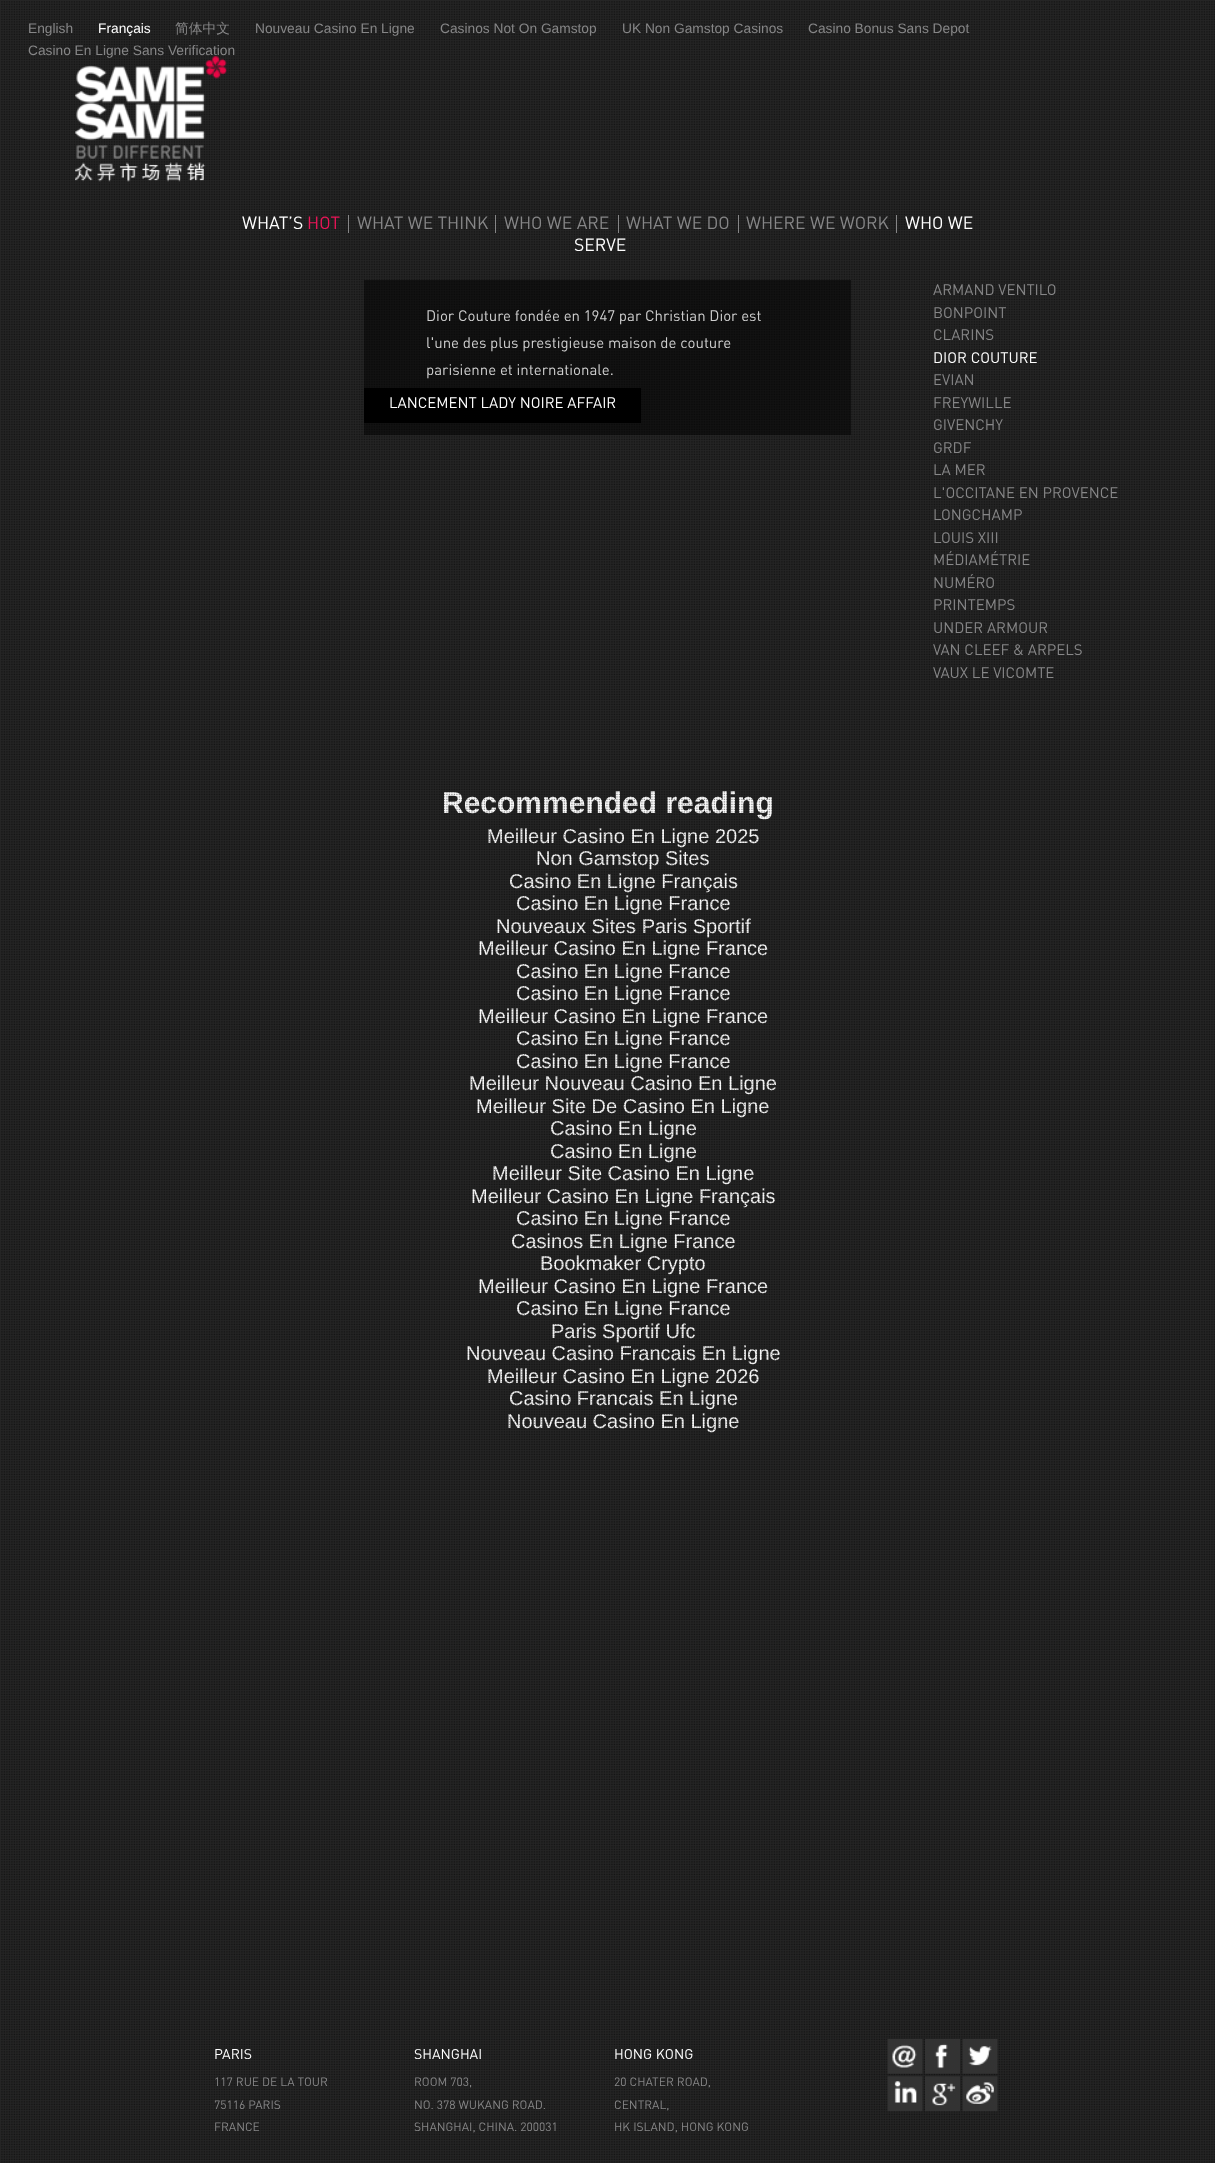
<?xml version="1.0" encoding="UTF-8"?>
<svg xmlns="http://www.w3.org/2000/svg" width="1215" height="2163">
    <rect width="100%" height="100%" fill="#252525"/>
    <text x="442" y="813" font-family="Liberation Sans" font-size="30" font-weight="700" fill="#FFFFFF">Recommended reading</text>
    <text x="487" y="843" font-family="Liberation Sans" font-size="20" fill="#FFFFFF">Meilleur Casino En Ligne 2025</text>
    <text x="536" y="865" font-family="Liberation Sans" font-size="20" fill="#FFFFFF">Non Gamstop Sites</text>
    <text x="509" y="888" font-family="Liberation Sans" font-size="20" fill="#FFFFFF">Casino En Ligne Français</text>
    <text x="516" y="910" font-family="Liberation Sans" font-size="20" fill="#FFFFFF">Casino En Ligne France</text>
    <text x="496" y="933" font-family="Liberation Sans" font-size="20" fill="#FFFFFF">Nouveaux Sites Paris Sportif</text>
    <text x="478" y="955" font-family="Liberation Sans" font-size="20" fill="#FFFFFF">Meilleur Casino En Ligne France</text>
    <text font-family="Liberation Sans" font-size="20" fill="#FFFFFF">
        <tspan x="516" y="978">Casino En Ligne France</tspan>
        <tspan x="516" y="1000">Casino En Ligne France</tspan>
    </text>
    <text x="478" y="1023" font-family="Liberation Sans" font-size="20" fill="#FFFFFF">Meilleur Casino En Ligne France</text>
    <text font-family="Liberation Sans" font-size="20" fill="#FFFFFF">
        <tspan x="516" y="1045">Casino En Ligne France</tspan>
        <tspan x="516" y="1068">Casino En Ligne France</tspan>
    </text>
    <text x="469" y="1090" font-family="Liberation Sans" font-size="20" fill="#FFFFFF">Meilleur Nouveau Casino En Ligne</text>
    <text x="476" y="1113" font-family="Liberation Sans" font-size="20" fill="#FFFFFF">Meilleur Site De Casino En Ligne</text>
    <text font-family="Liberation Sans" font-size="20" fill="#FFFFFF">
        <tspan x="550" y="1135">Casino En Ligne</tspan>
        <tspan x="550" y="1158">Casino En Ligne</tspan>
    </text>
    <text x="492" y="1180" font-family="Liberation Sans" font-size="20" fill="#FFFFFF">Meilleur Site Casino En Ligne</text>
    <text x="471" y="1203" font-family="Liberation Sans" font-size="20" fill="#FFFFFF">Meilleur Casino En Ligne Français</text>
    <text x="516" y="1225" font-family="Liberation Sans" font-size="20" fill="#FFFFFF">Casino En Ligne France</text>
    <text x="511" y="1248" font-family="Liberation Sans" font-size="20" fill="#FFFFFF">Casinos En Ligne France</text>
    <text x="540" y="1270" font-family="Liberation Sans" font-size="20" fill="#FFFFFF">Bookmaker Crypto</text>
    <text x="478" y="1293" font-family="Liberation Sans" font-size="20" fill="#FFFFFF">Meilleur Casino En Ligne France</text>
    <text x="516" y="1315" font-family="Liberation Sans" font-size="20" fill="#FFFFFF">Casino En Ligne France</text>
    <text x="551" y="1338" font-family="Liberation Sans" font-size="20" fill="#FFFFFF">Paris Sportif Ufc</text>
    <text x="466" y="1360" font-family="Liberation Sans" font-size="20" fill="#FFFFFF">Nouveau Casino Francais En Ligne</text>
    <text x="487" y="1383" font-family="Liberation Sans" font-size="20" fill="#FFFFFF">Meilleur Casino En Ligne 2026</text>
    <text x="509" y="1405" font-family="Liberation Sans" font-size="20" fill="#FFFFFF">Casino Francais En Ligne</text>
    <text x="507" y="1428" font-family="Liberation Sans" font-size="20" fill="#FFFFFF">Nouveau Casino En Ligne</text>
    <image x="1" y="1" width="1214" height="2162" href="img_01.png"/>
    <text x="28" y="33" font-family="Liberation Sans" font-size="13.75" fill="#868687">English</text>
    <text x="98" y="33" font-family="Liberation Sans" font-size="13.75" fill="#FFFFFF">Français</text>
    <text x="175" y="33" font-family="WenQuanYi Zen Hei" font-size="13.75" font-weight="500" fill="#868687">简体中文</text>
    <text x="255" y="33" font-family="Liberation Sans" font-size="13.75" fill="#868687">Nouveau Casino En Ligne</text>
    <text x="440" y="33" font-family="Liberation Sans" font-size="13.75" fill="#868687">Casinos Not On Gamstop</text>
    <text x="622" y="33" font-family="Liberation Sans" font-size="13.75" fill="#868687">UK Non Gamstop Casinos</text>
    <text x="808" y="33" font-family="Liberation Sans" font-size="13.75" fill="#868687">Casino Bonus Sans Depot</text>
    <image x="75" y="56" width="152" height="126" href="img_02.png"/>
    <text x="28" y="55" font-family="Liberation Sans" font-size="13.75" fill="#868687">Casino En Ligne Sans Verification</text>
    <text x="242" y="229" font-family="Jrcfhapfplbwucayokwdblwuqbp" font-size="17.5" fill="#FFFFFF">WHAT’S</text>
    <text x="307" y="229" font-family="Jrcfhapfplbwucayokwdblwuqbp" font-size="17.5" fill="#EC1558">HOT</text>
    <text x="357" y="229" font-family="Jrcfhapfplbwucayokwdblwuqbp" font-size="17.5" fill="#868687">WHAT WE THINK</text>
    <rect x="348" y="215" width="1" height="18" fill="#868687"/>
    <text x="504" y="229" font-family="Jrcfhapfplbwucayokwdblwuqbp" font-size="17.5" fill="#868687">WHO WE ARE</text>
    <rect x="495" y="215" width="1" height="18" fill="#868687"/>
    <text x="626" y="229" font-family="Jrcfhapfplbwucayokwdblwuqbp" font-size="17.5" fill="#868687">WHAT WE DO</text>
    <rect x="618" y="215" width="1" height="18" fill="#868687"/>
    <text x="746" y="229" font-family="Jrcfhapfplbwucayokwdblwuqbp" font-size="17.5" fill="#868687">WHERE WE WORK</text>
    <rect x="738" y="215" width="1" height="18" fill="#868687"/>
    <text x="905" y="229" font-family="Jrcfhapfplbwucayokwdblwuqbp" font-size="17.5" fill="#FFFFFF">WHO WE</text>
    <rect x="896" y="215" width="1" height="18" fill="#868687"/>
    <text x="574" y="251" font-family="Jrcfhapfplbwucayokwdblwuqbp" font-size="17.5" fill="#FFFFFF">SERVE</text>
    <rect x="364" y="280" width="487" height="155" fill="#000000" fill-opacity="0.5"/>
    <text font-family="Jrcfhapfplbwucayokwdblwuqbp" font-size="15" fill="#CFCFCF">
        <tspan x="426" y="321">Dior Couture fondée en 1947 par Christian Dior est</tspan>
        <tspan x="426" y="348">l'une des plus prestigieuse maison de couture</tspan>
        <tspan x="426" y="375">parisienne et internationale.</tspan>
    </text>
    <rect x="364" y="388" width="277" height="35" fill="#000000"/>
    <text x="389" y="408" font-family="Jrcfhapfplbwucayokwdblwuqbp" font-size="15" fill="#FFFFFF">LANCEMENT LADY NOIRE AFFAIR</text>
    <text font-family="Jrcfhapfplbwucayokwdblwuqbp" font-size="15" fill="#868687">
        <tspan x="933" y="295">ARMAND VENTILO</tspan>
        <tspan x="933" y="318">BONPOINT</tspan>
        <tspan x="933" y="340">CLARINS</tspan>
    </text>
    <text x="933" y="363" font-family="Jrcfhapfplbwucayokwdblwuqbp" font-size="15" fill="#FFFFFF">DIOR COUTURE</text>
    <text font-family="Jrcfhapfplbwucayokwdblwuqbp" font-size="15" fill="#868687">
        <tspan x="933" y="385">EVIAN</tspan>
        <tspan x="933" y="408">FREYWILLE</tspan>
        <tspan x="933" y="430">GIVENCHY</tspan>
        <tspan x="933" y="453">GRDF</tspan>
        <tspan x="933" y="475">LA MER</tspan>
        <tspan x="933" y="498">L'OCCITANE EN PROVENCE</tspan>
        <tspan x="933" y="520">LONGCHAMP</tspan>
        <tspan x="933" y="543">LOUIS XIII</tspan>
        <tspan x="933" y="565">MÉDIAMÉTRIE</tspan>
        <tspan x="933" y="588">NUMÉRO</tspan>
        <tspan x="933" y="610">PRINTEMPS</tspan>
        <tspan x="933" y="633">UNDER ARMOUR</tspan>
        <tspan x="933" y="655">VAN CLEEF &amp; ARPELS</tspan>
        <tspan x="933" y="678">VAUX LE VICOMTE</tspan>
    </text>
    <text x="214" y="2059" font-family="Jrcfhapfplbwucayokwdblwuqbp" font-size="14" fill="#FFFFFF">PARIS</text>
    <text font-family="Jrcfhapfplbwucayokwdblwuqbp" font-size="12" fill="#868687">
        <tspan x="214" y="2086">117 RUE DE LA TOUR</tspan>
        <tspan x="214" y="2109">75116 PARIS</tspan>
        <tspan x="214" y="2131">FRANCE</tspan>
    </text>
    <text x="414" y="2059" font-family="Jrcfhapfplbwucayokwdblwuqbp" font-size="14" fill="#FFFFFF">SHANGHAI</text>
    <text font-family="Jrcfhapfplbwucayokwdblwuqbp" font-size="12" fill="#868687">
        <tspan x="414" y="2086">ROOM 703,</tspan>
        <tspan x="414" y="2109">NO. 378 WUKANG ROAD.</tspan>
        <tspan x="414" y="2131">SHANGHAI, CHINA. 200031</tspan>
    </text>
    <text x="614" y="2059" font-family="Jrcfhapfplbwucayokwdblwuqbp" font-size="14" fill="#FFFFFF">HONG KONG</text>
    <text font-family="Jrcfhapfplbwucayokwdblwuqbp" font-size="12" fill="#868687">
        <tspan x="614" y="2086">20 CHATER ROAD,</tspan>
        <tspan x="614" y="2109">CENTRAL,</tspan>
        <tspan x="614" y="2131">HK ISLAND, HONG KONG</tspan>
    </text>
    <image x="887" y="2039" width="36" height="35" href="img_03.png"/>
    <image x="925" y="2039" width="35" height="35" href="img_04.png"/>
    <image x="962" y="2039" width="36" height="35" href="img_05.png"/>
    <image x="887" y="2076" width="36" height="36" href="img_06.png"/>
    <image x="925" y="2076" width="35" height="36" href="img_07.png"/>
    <image x="962" y="2076" width="36" height="36" href="img_08.png"/>
</svg>
